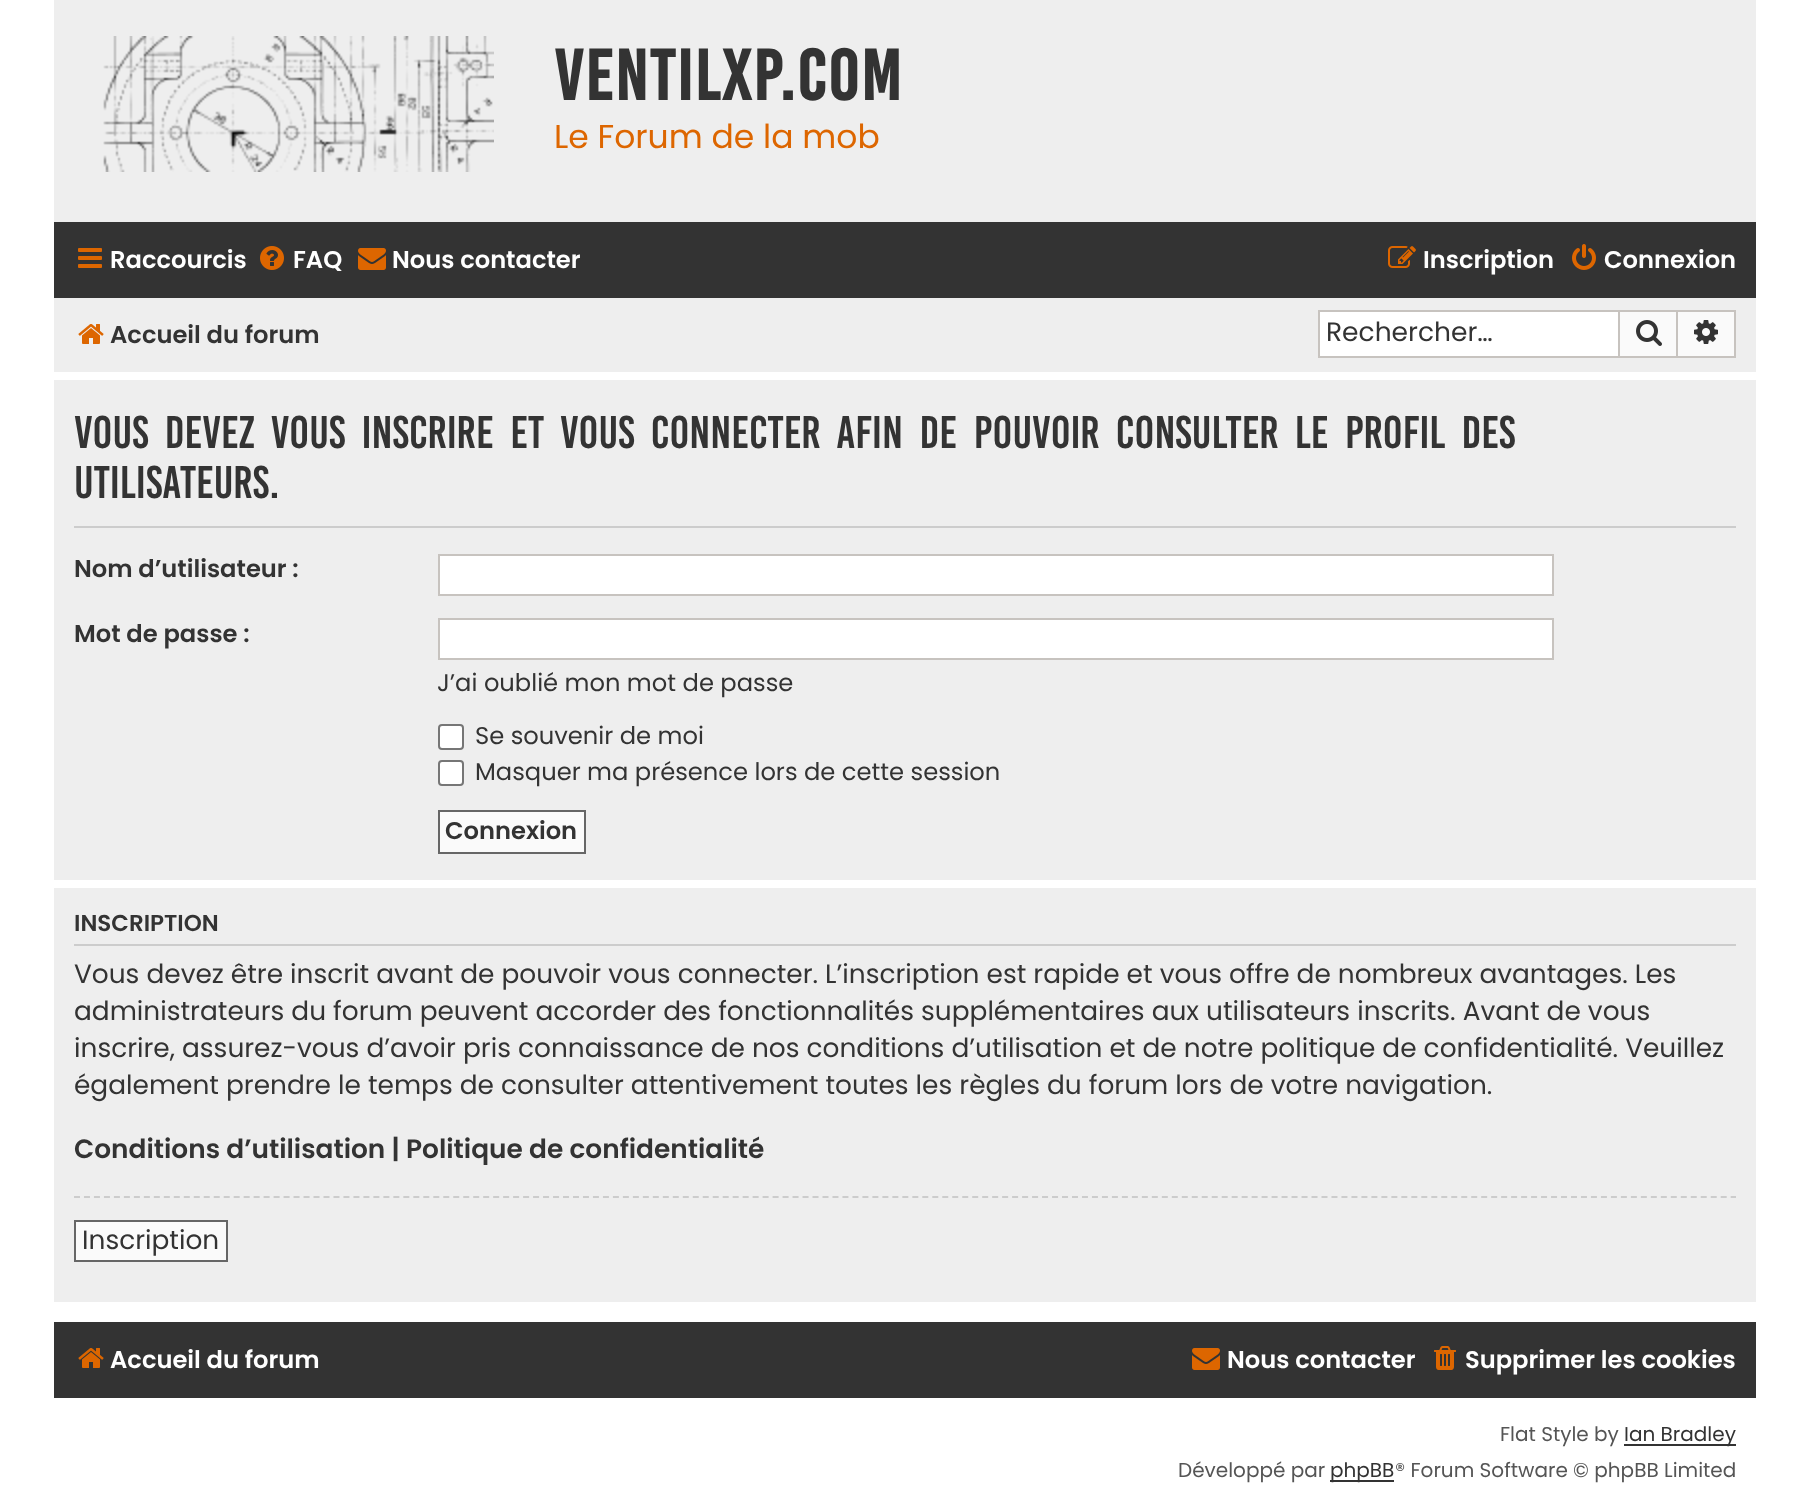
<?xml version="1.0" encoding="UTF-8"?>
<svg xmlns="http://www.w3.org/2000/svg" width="1809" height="1505">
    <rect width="100%" height="100%" fill="#FFFFFF"/>
    <rect x="54" y="0" width="1702" height="222" fill="#EEEEEE"/>
    <image x="103" y="36" width="391" height="136" href="img_01.png"/>
    <text x="554" y="100" font-family="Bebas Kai" font-size="55" font-weight="700" letter-spacing="2" fill="#333333">Ventilxp.com</text>
    <text x="554" y="148" font-family="Poppins" font-size="33" fill="#DD6600">Le Forum de la mob</text>
    <rect x="54" y="222" width="1702" height="76" fill="#333333"/>
    <image x="78" y="248" width="24" height="20" href="img_02.png"/>
    <text x="110" y="268" font-family="Poppins" font-size="24.2" font-weight="600" fill="#FFFFFF">Raccourcis</text>
    <image x="260" y="246" width="24" height="24" href="img_03.png"/>
    <text x="293" y="268" font-family="Poppins" font-size="24.2" font-weight="600" fill="#FFFFFF">FAQ</text>
    <image x="358" y="248" width="28" height="22" href="img_04.png"/>
    <text x="392" y="268" font-family="Poppins" font-size="24.2" font-weight="600" fill="#FFFFFF">Nous contacter</text>
    <image x="1388" y="246" width="28" height="22" href="img_05.png"/>
    <text x="1423" y="268" font-family="Poppins" font-size="24.2" font-weight="600" fill="#FFFFFF">Inscription</text>
    <image x="1572" y="244" width="24" height="26" href="img_06.png"/>
    <text x="1604" y="268" font-family="Poppins" font-size="24.2" font-weight="600" fill="#FFFFFF">Connexion</text>
    <rect x="54" y="298" width="1702" height="74" fill="#EEEEEE"/>
    <image x="78" y="324" width="26" height="20" href="img_07.png"/>
    <text x="110" y="343" font-family="Poppins" font-size="24.2" font-weight="600" fill="#333333">Accueil du forum</text>
    <rect x="1320" y="312" width="298" height="44" fill="#FFFFFF"/>
    <rect x="1318" y="310" width="300" height="2" fill="#C7C3BF"/>
    <rect x="1318" y="356" width="300" height="2" fill="#C7C3BF"/>
    <rect x="1318" y="310" width="2" height="48" fill="#C7C3BF"/>
    <text x="1326" y="341" font-family="Poppins" font-size="26.5" fill="#333333">Rechercher…</text>
    <rect x="1619" y="311" width="58" height="46" fill="#FAFAFA" stroke="#C7C3BF" stroke-width="2"/>
    <image x="1636" y="320" width="26" height="26" href="img_08.png"/>
    <rect x="1678" y="312" width="56" height="44" fill="#FAFAFA"/>
    <rect x="1678" y="310" width="58" height="2" fill="#C7C3BF"/>
    <rect x="1734" y="310" width="2" height="48" fill="#C7C3BF"/>
    <rect x="1678" y="356" width="58" height="2" fill="#C7C3BF"/>
    <image x="1694" y="320" width="24" height="24" href="img_09.png"/>
    <rect x="54" y="380" width="1702" height="500" fill="#EEEEEE"/>
    <rect x="74" y="526" width="1662" height="2" fill="#CCCCCC"/>
    <text font-family="Bebas Kai" font-size="35.2" fill="#333333">
        <tspan x="74" y="448" word-spacing="8">Vous devez vous inscrire et vous connecter afin de pouvoir consulter le profil des</tspan>
        <tspan x="74" y="498">utilisateurs.</tspan>
    </text>
    <text x="74" y="577" font-family="Poppins" font-size="24.2" font-weight="600" fill="#333333">Nom d’utilisateur :</text>
    <rect x="439" y="555" width="1114" height="40" fill="#FFFFFF" stroke="#C7C3BF" stroke-width="2"/>
    <text x="74" y="642" font-family="Poppins" font-size="24.2" font-weight="600" fill="#333333">Mot de passe :</text>
    <rect x="439" y="619" width="1114" height="40" fill="#FFFFFF" stroke="#C7C3BF" stroke-width="2"/>
    <text x="437" y="691" font-family="Poppins" font-size="24.2" fill="#333333">J’ai oublié mon mot de passe</text>
    <rect x="439" y="725" width="24" height="24" rx="3" fill="#FFFFFF" stroke="#767676" stroke-width="2"/>
    <text x="475" y="744" font-family="Poppins" font-size="24.2" fill="#333333">Se souvenir de moi</text>
    <rect x="439" y="761" width="24" height="24" rx="3" fill="#FFFFFF" stroke="#767676" stroke-width="2"/>
    <text x="475" y="780" font-family="Poppins" font-size="24.2" fill="#333333">Masquer ma présence lors de cette session</text>
    <rect x="439" y="811" width="146" height="42" fill="#FAFAFA" stroke="#666666" stroke-width="2"/>
    <text x="445" y="839" font-family="Poppins" font-size="24.2" font-weight="600" fill="#333333">Connexion</text>
    <rect x="54" y="888" width="1702" height="414" fill="#EEEEEE"/>
    <rect x="74" y="944" width="1662" height="2" fill="#CCCCCC"/>
    <text x="74" y="931" font-family="Poppins" font-size="23" font-weight="600" fill="#333333">INSCRIPTION</text>
    <text font-family="Poppins" font-size="26.4" fill="#333333">
        <tspan x="74" y="983">Vous devez être inscrit avant de pouvoir vous connecter. L’inscription est rapide et vous offre de nombreux avantages. Les</tspan>
        <tspan x="74" y="1020">administrateurs du forum peuvent accorder des fonctionnalités supplémentaires aux utilisateurs inscrits. Avant de vous</tspan>
        <tspan x="74" y="1057">inscrire, assurez-vous d’avoir pris connaissance de nos conditions d’utilisation et de notre politique de confidentialité. Veuillez</tspan>
        <tspan x="74" y="1094">également prendre le temps de consulter attentivement toutes les règles du forum lors de votre navigation.</tspan>
    </text>
    <text x="74" y="1158" font-family="Poppins" font-size="26.4" font-weight="600" fill="#333333">Conditions d’utilisation | Politique de confidentialité</text>
    <path d="M 74 1197 H 1736" fill="none" stroke="#CCCCCC" stroke-width="2" stroke-dasharray="6 3.98"/>
    <rect x="75" y="1221" width="152" height="40" fill="#FAFAFA" stroke="#666666" stroke-width="2"/>
    <text x="82" y="1249" font-family="Poppins" font-size="26.4" fill="#333333">Inscription</text>
    <rect x="54" y="1322" width="1702" height="76" fill="#333333"/>
    <image x="78" y="1348" width="26" height="20" href="img_10.png"/>
    <text x="110" y="1368" font-family="Poppins" font-size="24.2" font-weight="600" fill="#FFFFFF">Accueil du forum</text>
    <image x="1192" y="1348" width="28" height="22" href="img_04.png"/>
    <text x="1227" y="1368" font-family="Poppins" font-size="24.2" font-weight="600" fill="#FFFFFF">Nous contacter</text>
    <image x="1434" y="1346" width="22" height="24" href="img_11.png"/>
    <text x="1465" y="1368" font-family="Poppins" font-size="24.2" font-weight="600" fill="#FFFFFF">Supprimer les cookies</text>
    <text x="1500" y="1441" font-family="Poppins" font-size="20" fill="#555555">Flat Style by</text>
    <rect x="1624" y="1444" width="112" height="2" fill="#333333"/>
    <text x="1624" y="1441" font-family="Poppins" font-size="20" fill="#333333">Ian Bradley</text>
    <text x="1178" y="1477" font-family="Poppins" font-size="20" fill="#555555">Développé par</text>
    <rect x="1330" y="1480" width="64" height="2" fill="#333333"/>
    <text x="1330" y="1477" font-family="Poppins" font-size="20" fill="#333333">phpBB</text>
    <text x="1395" y="1477" font-family="Poppins" font-size="20" fill="#555555">® Forum Software © phpBB Limited</text>
</svg>
